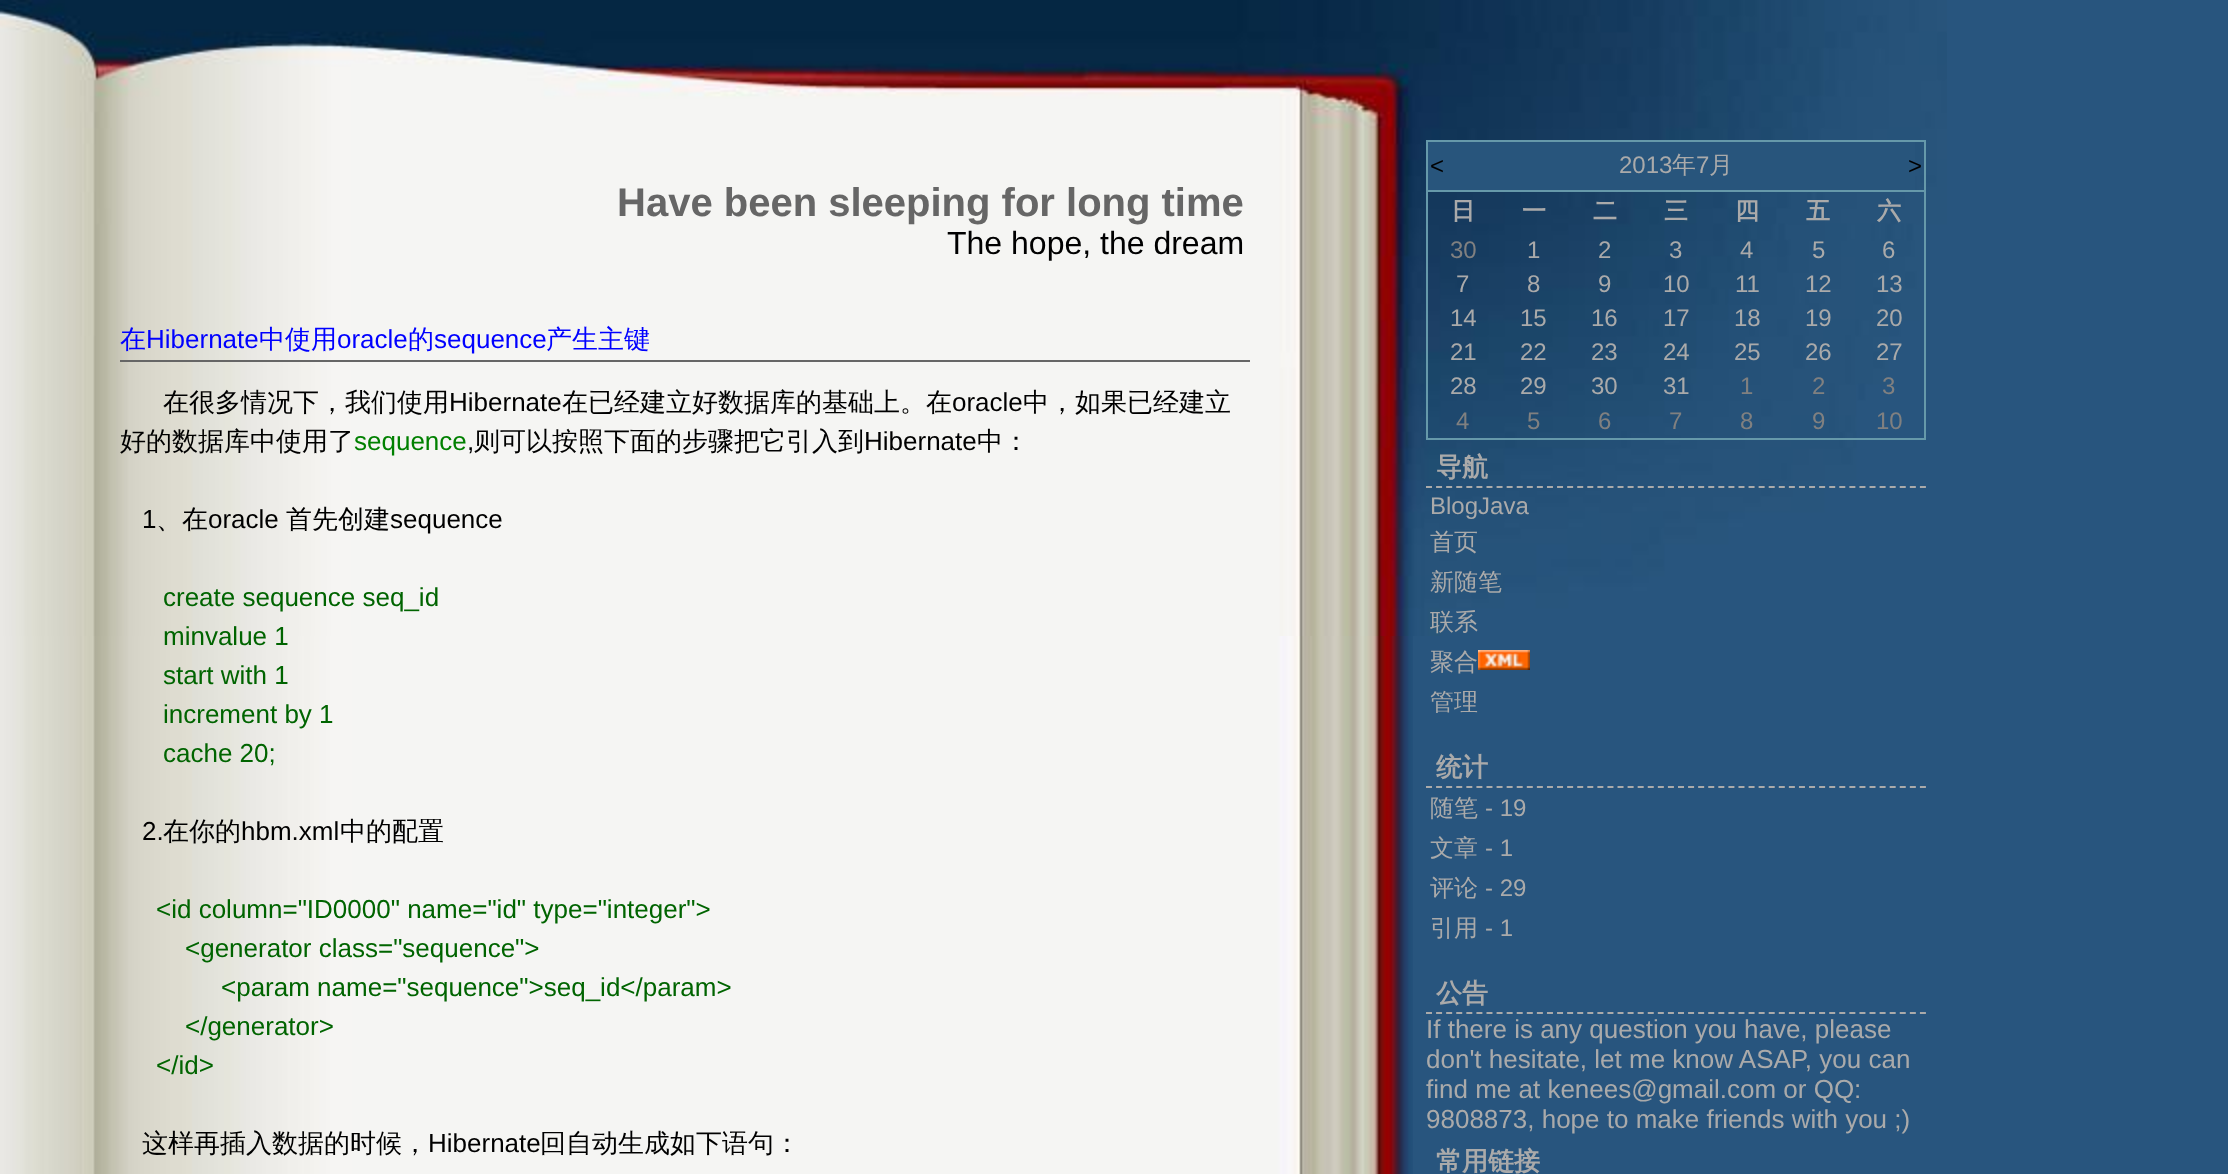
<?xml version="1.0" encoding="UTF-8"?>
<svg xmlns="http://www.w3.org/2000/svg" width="2228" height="1174">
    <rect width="100%" height="100%" fill="#28557E"/>
    <image x="0" y="636" width="1413" height="538" href="img_01.png"/>
    <image x="0" y="0" width="1947" height="636" href="img_02.png"/>
    <text x="617" y="216" font-family="Liberation Sans" font-size="40" font-weight="700" fill="#666666">Have been sleeping for long time</text>
    <text x="947" y="254" font-family="Liberation Sans" font-size="32" fill="#000000">The hope, the dream</text>
    <rect x="1426" y="140" width="500" height="2" fill="#6699AA"/>
    <rect x="1924" y="140" width="2" height="300" fill="#6699AA"/>
    <rect x="1426" y="438" width="500" height="2" fill="#6699AA"/>
    <rect x="1426" y="140" width="2" height="300" fill="#6699AA"/>
    <rect x="1428" y="142" width="487" height="48" fill="#28557C"/>
    <rect x="1428" y="190" width="496" height="2" fill="#6699AA"/>
    <text x="1430" y="174" font-family="Liberation Sans" font-size="24" fill="#000000">&lt;</text>
    <text x="1619" y="173" font-family="Liberation Sans" font-size="24" fill="#AAAAAA">2013</text>
    <text x="1672" y="173" font-family="WenQuanYi Zen Hei" font-size="24" font-weight="500" fill="#AAAAAA">年</text>
    <text x="1696" y="173" font-family="Liberation Sans" font-size="24" fill="#AAAAAA">7</text>
    <text x="1709" y="173" font-family="WenQuanYi Zen Hei" font-size="24" font-weight="500" fill="#AAAAAA">月</text>
    <text x="1908" y="174" font-family="Liberation Sans" font-size="24" fill="#000000">&gt;</text>
    <text x="1451" y="219" font-family="WenQuanYi Zen Hei" font-size="24" font-weight="700" fill="#AAAAAA">日</text>
    <text x="1522" y="219" font-family="WenQuanYi Zen Hei" font-size="24" font-weight="700" fill="#AAAAAA">一</text>
    <text x="1593" y="219" font-family="WenQuanYi Zen Hei" font-size="24" font-weight="700" fill="#AAAAAA">二</text>
    <text x="1664" y="219" font-family="WenQuanYi Zen Hei" font-size="24" font-weight="700" fill="#AAAAAA">三</text>
    <text x="1735" y="219" font-family="WenQuanYi Zen Hei" font-size="24" font-weight="700" fill="#AAAAAA">四</text>
    <text x="1806" y="219" font-family="WenQuanYi Zen Hei" font-size="24" font-weight="700" fill="#AAAAAA">五</text>
    <text x="1877" y="219" font-family="WenQuanYi Zen Hei" font-size="24" font-weight="700" fill="#AAAAAA">六</text>
    <text x="1450" y="258" font-family="Liberation Sans" font-size="24" fill="#808080">30</text>
    <text x="1527" y="258" font-family="Liberation Sans" font-size="24" fill="#AAAAAA">1</text>
    <text x="1598" y="258" font-family="Liberation Sans" font-size="24" fill="#AAAAAA">2</text>
    <text x="1669" y="258" font-family="Liberation Sans" font-size="24" fill="#AAAAAA">3</text>
    <text x="1740" y="258" font-family="Liberation Sans" font-size="24" fill="#AAAAAA">4</text>
    <text x="1812" y="258" font-family="Liberation Sans" font-size="24" fill="#AAAAAA">5</text>
    <text x="1882" y="258" font-family="Liberation Sans" font-size="24" fill="#AAAAAA">6</text>
    <text x="1456" y="292" font-family="Liberation Sans" font-size="24" fill="#AAAAAA">7</text>
    <text x="1527" y="292" font-family="Liberation Sans" font-size="24" fill="#AAAAAA">8</text>
    <text x="1598" y="292" font-family="Liberation Sans" font-size="24" fill="#AAAAAA">9</text>
    <text x="1663" y="292" font-family="Liberation Sans" font-size="24" fill="#AAAAAA">10</text>
    <text x="1735" y="292" font-family="Liberation Sans" font-size="24" fill="#AAAAAA">11</text>
    <text x="1805" y="292" font-family="Liberation Sans" font-size="24" fill="#AAAAAA">12</text>
    <text x="1876" y="292" font-family="Liberation Sans" font-size="24" fill="#AAAAAA">13</text>
    <text x="1450" y="326" font-family="Liberation Sans" font-size="24" fill="#AAAAAA">14</text>
    <text x="1520" y="326" font-family="Liberation Sans" font-size="24" fill="#AAAAAA">15</text>
    <text x="1591" y="326" font-family="Liberation Sans" font-size="24" fill="#AAAAAA">16</text>
    <text x="1663" y="326" font-family="Liberation Sans" font-size="24" fill="#AAAAAA">17</text>
    <text x="1734" y="326" font-family="Liberation Sans" font-size="24" fill="#AAAAAA">18</text>
    <text x="1805" y="326" font-family="Liberation Sans" font-size="24" fill="#AAAAAA">19</text>
    <text x="1876" y="326" font-family="Liberation Sans" font-size="24" fill="#AAAAAA">20</text>
    <text x="1450" y="360" font-family="Liberation Sans" font-size="24" fill="#AAAAAA">21</text>
    <text x="1520" y="360" font-family="Liberation Sans" font-size="24" fill="#AAAAAA">22</text>
    <text x="1591" y="360" font-family="Liberation Sans" font-size="24" fill="#AAAAAA">23</text>
    <text x="1663" y="360" font-family="Liberation Sans" font-size="24" fill="#AAAAAA">24</text>
    <text x="1734" y="360" font-family="Liberation Sans" font-size="24" fill="#AAAAAA">25</text>
    <text x="1805" y="360" font-family="Liberation Sans" font-size="24" fill="#AAAAAA">26</text>
    <text x="1876" y="360" font-family="Liberation Sans" font-size="24" fill="#AAAAAA">27</text>
    <text x="1450" y="394" font-family="Liberation Sans" font-size="24" fill="#AAAAAA">28</text>
    <text x="1520" y="394" font-family="Liberation Sans" font-size="24" fill="#AAAAAA">29</text>
    <text x="1591" y="394" font-family="Liberation Sans" font-size="24" fill="#AAAAAA">30</text>
    <text x="1663" y="394" font-family="Liberation Sans" font-size="24" fill="#AAAAAA">31</text>
    <text x="1740" y="394" font-family="Liberation Sans" font-size="24" fill="#808080">1</text>
    <text x="1812" y="394" font-family="Liberation Sans" font-size="24" fill="#808080">2</text>
    <text x="1882" y="394" font-family="Liberation Sans" font-size="24" fill="#808080">3</text>
    <text x="1456" y="429" font-family="Liberation Sans" font-size="24" fill="#808080">4</text>
    <text x="1527" y="429" font-family="Liberation Sans" font-size="24" fill="#808080">5</text>
    <text x="1598" y="429" font-family="Liberation Sans" font-size="24" fill="#808080">6</text>
    <text x="1669" y="429" font-family="Liberation Sans" font-size="24" fill="#808080">7</text>
    <text x="1740" y="429" font-family="Liberation Sans" font-size="24" fill="#808080">8</text>
    <text x="1812" y="429" font-family="Liberation Sans" font-size="24" fill="#808080">9</text>
    <text x="1876" y="429" font-family="Liberation Sans" font-size="24" fill="#808080">10</text>
    <path d="M 1426 487 H 1926" fill="none" stroke="#AAAAAA" stroke-width="2" stroke-dasharray="6 4.08"/>
    <text x="1436" y="476" font-family="WenQuanYi Zen Hei" font-size="26" font-weight="700" fill="#AAAAAA">导航</text>
    <text x="1430" y="514" font-family="Liberation Sans" font-size="24" fill="#AAAAAA">BlogJava</text>
    <text font-family="WenQuanYi Zen Hei" font-size="24" font-weight="500" fill="#AAAAAA">
        <tspan x="1430" y="550">首页</tspan>
        <tspan x="1430" y="590">新随笔</tspan>
        <tspan x="1430" y="630">联系</tspan>
        <tspan x="1430" y="670">聚合</tspan>
    </text>
    <image x="1478" y="650" width="52" height="20" href="img_03.png"/>
    <text x="1430" y="710" font-family="WenQuanYi Zen Hei" font-size="24" font-weight="500" fill="#AAAAAA">管理</text>
    <path d="M 1426 787 H 1926" fill="none" stroke="#AAAAAA" stroke-width="2" stroke-dasharray="6 4.08"/>
    <text x="1436" y="776" font-family="WenQuanYi Zen Hei" font-size="26" font-weight="700" fill="#AAAAAA">统计</text>
    <text x="1430" y="816" font-family="WenQuanYi Zen Hei" font-size="24" font-weight="500" fill="#AAAAAA">随笔</text>
    <text x="1485" y="816" font-family="Liberation Sans" font-size="24" fill="#AAAAAA">- 19</text>
    <text x="1430" y="856" font-family="WenQuanYi Zen Hei" font-size="24" font-weight="500" fill="#AAAAAA">文章</text>
    <text x="1485" y="856" font-family="Liberation Sans" font-size="24" fill="#AAAAAA">- 1</text>
    <text x="1430" y="896" font-family="WenQuanYi Zen Hei" font-size="24" font-weight="500" fill="#AAAAAA">评论</text>
    <text x="1485" y="896" font-family="Liberation Sans" font-size="24" fill="#AAAAAA">- 29</text>
    <text x="1430" y="936" font-family="WenQuanYi Zen Hei" font-size="24" font-weight="500" fill="#AAAAAA">引用</text>
    <text x="1485" y="936" font-family="Liberation Sans" font-size="24" fill="#AAAAAA">- 1</text>
    <path d="M 1426 1013 H 1926" fill="none" stroke="#AAAAAA" stroke-width="2" stroke-dasharray="6 4.08"/>
    <text x="1436" y="1002" font-family="WenQuanYi Zen Hei" font-size="26" font-weight="700" fill="#AAAAAA">公告</text>
    <text font-family="Liberation Sans" font-size="26" fill="#AAAAAA">
        <tspan x="1426" y="1038">If there is any question you have, please</tspan>
        <tspan x="1426" y="1068">don't hesitate, let me know ASAP, you can</tspan>
        <tspan x="1426" y="1098">find me at kenees@gmail.com or QQ:</tspan>
        <tspan x="1426" y="1128">9808873, hope to make friends with you ;)</tspan>
    </text>
    <text x="1436" y="1170" font-family="WenQuanYi Zen Hei" font-size="26" font-weight="700" fill="#AAAAAA">常用链接</text>
    <rect x="120" y="360" width="1130" height="2" fill="#666666"/>
    <text x="120" y="348" font-family="WenQuanYi Zen Hei" font-size="26" font-weight="500" fill="#0000FF">在</text>
    <text x="146" y="348" font-family="Liberation Sans" font-size="26" fill="#0000FF">Hibernate</text>
    <text x="259" y="348" font-family="WenQuanYi Zen Hei" font-size="26" font-weight="500" fill="#0000FF">中使用</text>
    <text x="337" y="348" font-family="Liberation Sans" font-size="26" fill="#0000FF">oracle</text>
    <text x="408" y="348" font-family="WenQuanYi Zen Hei" font-size="26" font-weight="500" fill="#0000FF">的</text>
    <text x="434" y="348" font-family="Liberation Sans" font-size="26" fill="#0000FF">sequence</text>
    <text x="546" y="348" font-family="WenQuanYi Zen Hei" font-size="26" font-weight="500" fill="#0000FF">产生主键</text>
    <text x="163" y="411" font-family="WenQuanYi Zen Hei" font-size="26" font-weight="500" fill="#000000">在很多情况下，我们使用</text>
    <text x="449" y="411" font-family="Liberation Sans" font-size="26" fill="#000000">Hibernate</text>
    <text x="562" y="411" font-family="WenQuanYi Zen Hei" font-size="26" font-weight="500" fill="#000000">在已经建立好数据库的基础上。在</text>
    <text x="952" y="411" font-family="Liberation Sans" font-size="26" fill="#000000">oracle</text>
    <text x="1023" y="411" font-family="WenQuanYi Zen Hei" font-size="26" font-weight="500" fill="#000000">中，如果已经建立</text>
    <text x="120" y="450" font-family="WenQuanYi Zen Hei" font-size="26" font-weight="500" fill="#000000">好的数据库中使用了</text>
    <text x="354" y="450" font-family="Liberation Sans" font-size="26" fill="#008000">sequence</text>
    <text x="467" y="450" font-family="Liberation Sans" font-size="26" fill="#000000">,</text>
    <text x="474" y="450" font-family="WenQuanYi Zen Hei" font-size="26" font-weight="500" fill="#000000">则可以按照下面的步骤把它引入到</text>
    <text x="864" y="450" font-family="Liberation Sans" font-size="26" fill="#000000">Hibernate</text>
    <text x="977" y="450" font-family="WenQuanYi Zen Hei" font-size="26" font-weight="500" fill="#000000">中：</text>
    <text x="142" y="528" font-family="Liberation Sans" font-size="26" fill="#000000">1</text>
    <text x="156" y="528" font-family="WenQuanYi Zen Hei" font-size="26" font-weight="500" fill="#000000">、在</text>
    <text x="208" y="528" font-family="Liberation Sans" font-size="26" fill="#000000">oracle</text>
    <text x="286" y="528" font-family="WenQuanYi Zen Hei" font-size="26" font-weight="500" fill="#000000">首先创建</text>
    <text x="390" y="528" font-family="Liberation Sans" font-size="26" fill="#000000">sequence</text>
    <text font-family="Liberation Sans" font-size="26" fill="#006400">
        <tspan x="163" y="606">create sequence seq_id</tspan>
        <tspan x="163" y="645">minvalue 1</tspan>
        <tspan x="163" y="684">start with 1</tspan>
        <tspan x="163" y="723">increment by 1</tspan>
        <tspan x="163" y="762">cache 20;</tspan>
    </text>
    <text x="142" y="840" font-family="Liberation Sans" font-size="26" fill="#000000">2.</text>
    <text x="163" y="840" font-family="WenQuanYi Zen Hei" font-size="26" font-weight="500" fill="#000000">在你的</text>
    <text x="241" y="840" font-family="Liberation Sans" font-size="26" fill="#000000">hbm.xml</text>
    <text x="340" y="840" font-family="WenQuanYi Zen Hei" font-size="26" font-weight="500" fill="#000000">中的配置</text>
    <text x="156" y="918" font-family="Liberation Sans" font-size="26" fill="#006400">&lt;id column="ID0000" name="id" type="integer"&gt;</text>
    <text x="185" y="957" font-family="Liberation Sans" font-size="26" fill="#006400">&lt;generator class="sequence"&gt;</text>
    <text x="221" y="996" font-family="Liberation Sans" font-size="26" fill="#006400">&lt;param name="sequence"&gt;seq_id&lt;/param&gt;</text>
    <text x="185" y="1035" font-family="Liberation Sans" font-size="26" fill="#006400">&lt;/generator&gt;</text>
    <text x="156" y="1074" font-family="Liberation Sans" font-size="26" fill="#006400">&lt;/id&gt;</text>
    <text x="142" y="1152" font-family="WenQuanYi Zen Hei" font-size="26" font-weight="500" fill="#000000">这样再插入数据的时候，</text>
    <text x="428" y="1152" font-family="Liberation Sans" font-size="26" fill="#000000">Hibernate</text>
    <text x="540" y="1152" font-family="WenQuanYi Zen Hei" font-size="26" font-weight="500" fill="#000000">回自动生成如下语句：</text>
</svg>
